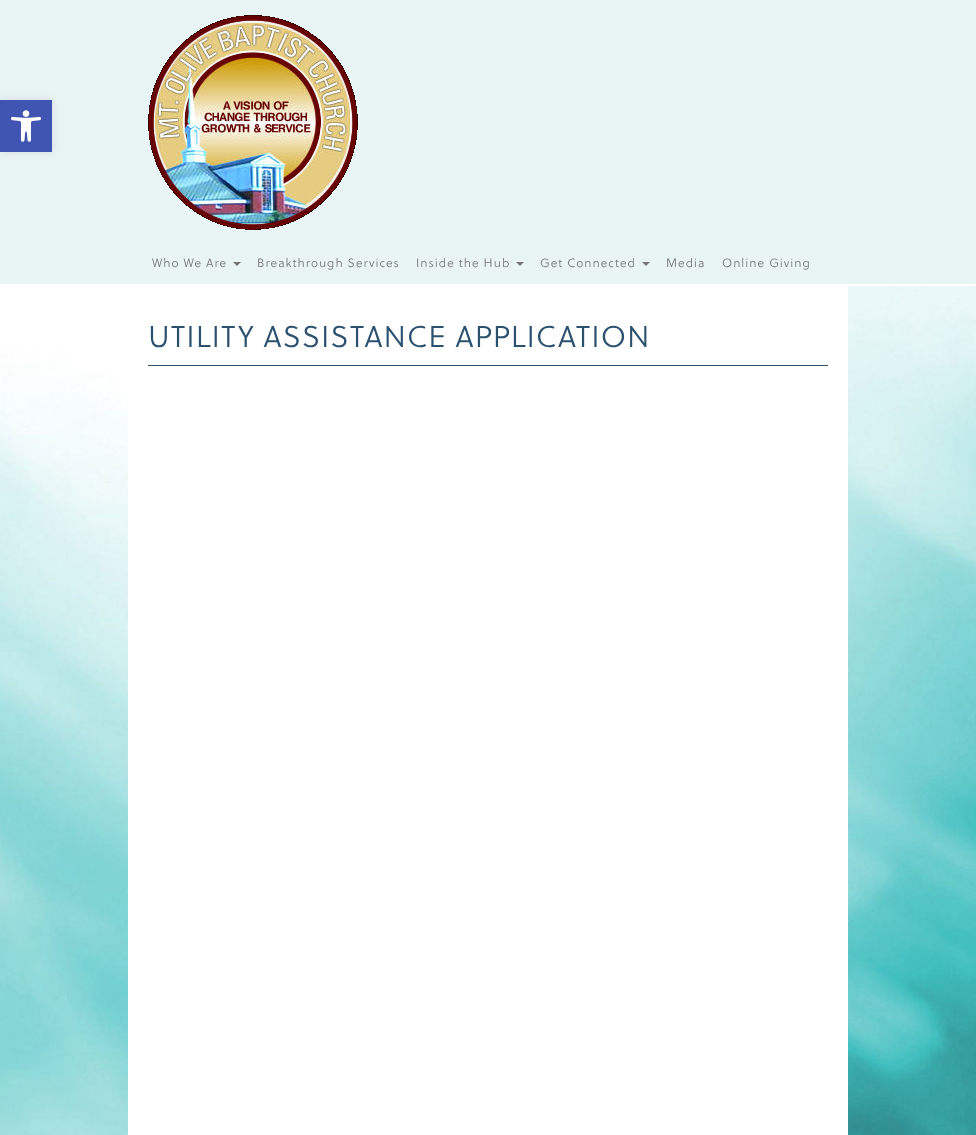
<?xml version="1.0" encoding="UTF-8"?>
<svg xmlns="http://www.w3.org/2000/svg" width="976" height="1135">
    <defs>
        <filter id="blur1" x="-50%" y="-200%" width="200%" height="500%"><feGaussianBlur stdDeviation="5"/></filter>
    </defs>
    <rect width="100%" height="100%" fill="#E9F4F4"/>
    <rect x="0" y="100" width="52" height="52" fill="#000000" fill-opacity="0.1" filter="url(#blur1)"/>
    <rect x="0" y="100" width="52" height="52" fill="#4054B2"/>
    <image x="11" y="110" width="30" height="32" href="img_01.png"/>
    <image x="148" y="15" width="210" height="215" href="img_02.png"/>
    <text x="152" y="267" font-family="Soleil" font-size="12" font-weight="300" letter-spacing="1" fill="#777777">Who We Are</text>
    <path d="M 233 262 H 241 L 237 266 Z" fill="#777777"/>
    <text x="257" y="267" font-family="Soleil" font-size="12" font-weight="300" letter-spacing="1" fill="#777777">Breakthrough Services</text>
    <text x="416" y="267" font-family="Soleil" font-size="12" font-weight="300" letter-spacing="1" fill="#777777">Inside the Hub</text>
    <path d="M 516 262 H 524 L 520 266 Z" fill="#777777"/>
    <text x="540" y="267" font-family="Soleil" font-size="12" font-weight="300" letter-spacing="1" fill="#777777">Get Connected</text>
    <path d="M 642 262 H 650 L 646 266 Z" fill="#777777"/>
    <text x="666" y="267" font-family="Soleil" font-size="12" font-weight="300" letter-spacing="1" fill="#777777">Media</text>
    <text x="722" y="267" font-family="Soleil" font-size="12" font-weight="300" letter-spacing="1" fill="#777777">Online Giving</text>
    <image x="0" y="286" width="976" height="849" href="img_03.png"/>
    <rect x="0" y="284" width="976" height="2" fill="#FFFFFF"/>
    <rect x="128" y="286" width="720" height="849" fill="#FFFFFF"/>
    <rect x="148" y="365" width="680" height="1" fill="#2C516F"/>
    <text x="148" y="347" font-family="Soleil" font-size="30" font-weight="300" letter-spacing="1" fill="#2C516F">UTILITY ASSISTANCE APPLICATION</text>
</svg>
